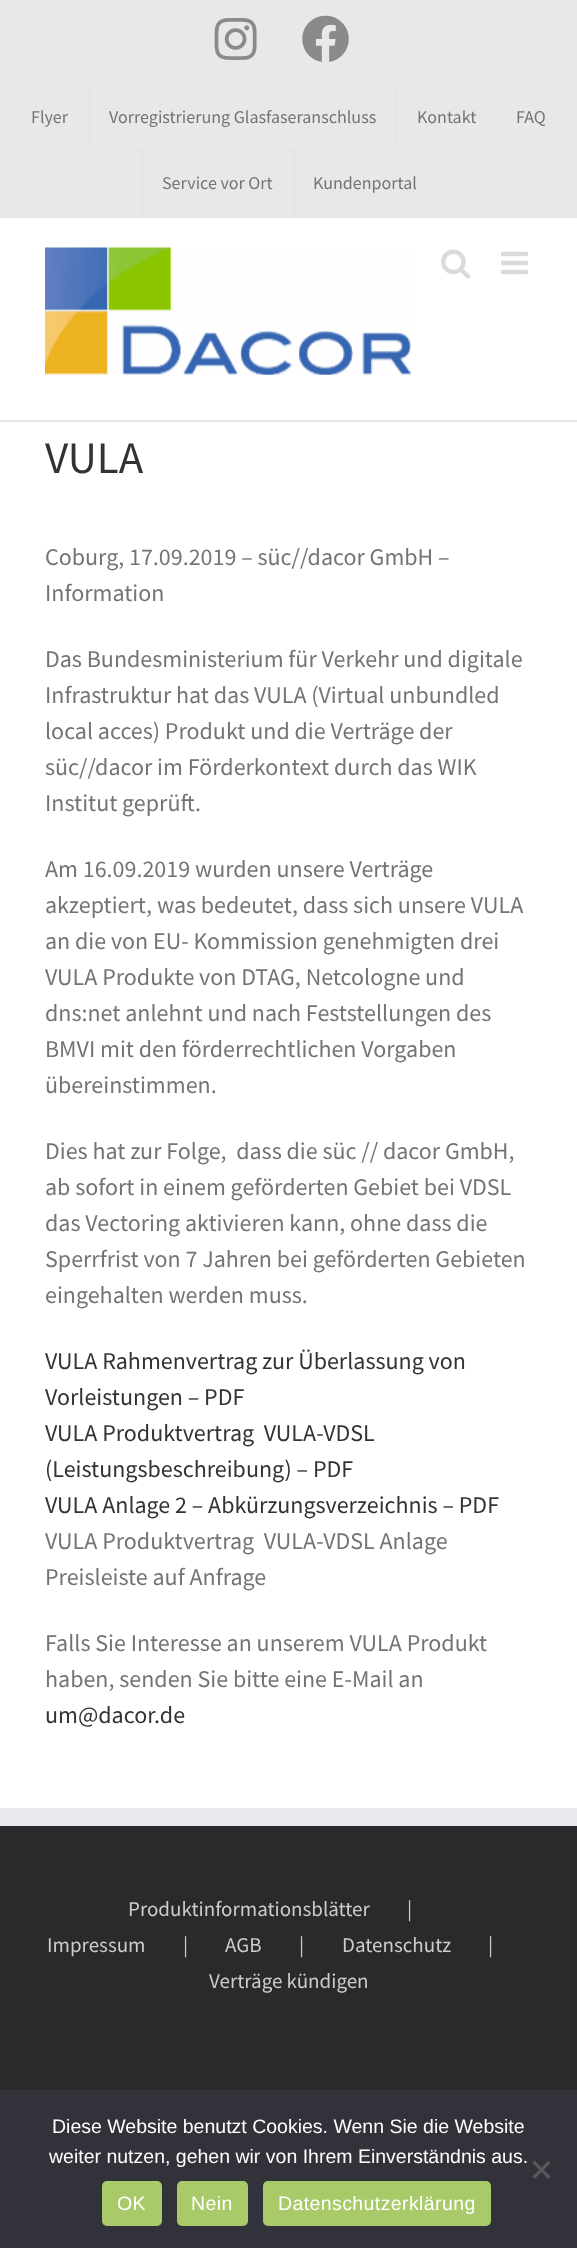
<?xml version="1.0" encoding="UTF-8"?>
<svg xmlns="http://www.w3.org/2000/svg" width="577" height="2248">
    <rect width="100%" height="100%" fill="#FFFFFF"/>
    <rect x="0" y="0" width="577" height="216" fill="#E8E8E8"/>
    <rect x="0" y="216" width="577" height="2" fill="#E5E5E5"/>
    <rect x="0" y="83" width="577" height="2" fill="#E5E5E5"/>
    <image x="214" y="18" width="43" height="42" href="img_01.png"/>
    <image x="302" y="15" width="47" height="47" href="img_02.png"/>
    <text x="31" y="123" font-family="Source Sans Pro" font-size="18" fill="#747474">Flyer</text>
    <rect x="89" y="84" width="2" height="66" fill="#E5E5E5"/>
    <text x="109" y="123" font-family="Source Sans Pro" font-size="18" fill="#747474">Vorregistrierung Glasfaseranschluss</text>
    <rect x="396" y="84" width="2" height="66" fill="#E5E5E5"/>
    <text x="417" y="123" font-family="Source Sans Pro" font-size="18" fill="#747474">Kontakt</text>
    <rect x="495" y="84" width="2" height="66" fill="#E5E5E5"/>
    <text x="516" y="123" font-family="Source Sans Pro" font-size="18" fill="#747474">FAQ</text>
    <rect x="141" y="150" width="2" height="66" fill="#E5E5E5"/>
    <rect x="293" y="150" width="2" height="66" fill="#E5E5E5"/>
    <rect x="0" y="149" width="577" height="2" fill="#E5E5E5"/>
    <text x="162" y="189" font-family="Source Sans Pro" font-size="18" fill="#747474">Service vor Ort</text>
    <text x="313" y="189" font-family="Source Sans Pro" font-size="18" fill="#747474">Kundenportal</text>
    <rect x="0" y="420" width="577" height="2" fill="#E5E5E5"/>
    <image x="45" y="247" width="366" height="128" href="img_03.png"/>
    <image x="441" y="249" width="30" height="30" href="img_04.png"/>
    <image x="501" y="251" width="27" height="24" href="img_05.png"/>
    <text x="45" y="473" font-family="Source Sans Pro" font-size="45" fill="#333333">VULA</text>
    <text font-family="Source Sans Pro" font-size="24" fill="#747474">
        <tspan x="45" y="565">Coburg, 17.09.2019 – süc//dacor GmbH –</tspan>
        <tspan x="45" y="601">Information</tspan>
    </text>
    <text font-family="Source Sans Pro" font-size="24" fill="#747474">
        <tspan x="45" y="667">Das Bundesministerium für Verkehr und digitale</tspan>
        <tspan x="45" y="703">Infrastruktur hat das VULA (Virtual unbundled</tspan>
        <tspan x="45" y="739">local acces) Produkt und die Verträge der</tspan>
        <tspan x="45" y="775">süc//dacor im Förderkontext durch das WIK</tspan>
        <tspan x="45" y="811">Institut geprüft.</tspan>
    </text>
    <text font-family="Source Sans Pro" font-size="24" fill="#747474">
        <tspan x="45" y="877">Am 16.09.2019 wurden unsere Verträge</tspan>
        <tspan x="45" y="913">akzeptiert, was bedeutet, dass sich unsere VULA</tspan>
        <tspan x="45" y="949">an die von EU- Kommission genehmigten drei</tspan>
        <tspan x="45" y="985">VULA Produkte von DTAG, Netcologne und</tspan>
        <tspan x="45" y="1021">dns:net anlehnt und nach Feststellungen des</tspan>
        <tspan x="45" y="1057">BMVI mit den förderrechtlichen Vorgaben</tspan>
        <tspan x="45" y="1093">übereinstimmen.</tspan>
    </text>
    <text font-family="Source Sans Pro" font-size="24" fill="#747474" xml:space="preserve"><tspan x="45" y="1159">Dies hat zur Folge,  dass die süc // dacor GmbH,</tspan><tspan x="45" y="1195">ab sofort in einem geförderten Gebiet bei VDSL</tspan><tspan x="45" y="1231">das Vectoring aktivieren kann, ohne dass die</tspan><tspan x="45" y="1267">Sperrfrist von 7 Jahren bei geförderten Gebieten</tspan><tspan x="45" y="1303">eingehalten werden muss.</tspan></text>
    <text font-family="Source Sans Pro" font-size="24" fill="#333333" xml:space="preserve"><tspan x="45" y="1369">VULA Rahmenvertrag zur Überlassung von</tspan><tspan x="45" y="1405">Vorleistungen – PDF</tspan><tspan x="45" y="1441">VULA Produktvertrag  VULA-VDSL</tspan><tspan x="45" y="1477">(Leistungsbeschreibung) – PDF</tspan><tspan x="45" y="1513">VULA Anlage 2 – Abkürzungsverzeichnis – PDF</tspan></text>
    <text font-family="Source Sans Pro" font-size="24" fill="#747474" xml:space="preserve"><tspan x="45" y="1549">VULA Produktvertrag  VULA-VDSL Anlage</tspan><tspan x="45" y="1585">Preisleiste auf Anfrage</tspan></text>
    <text font-family="Source Sans Pro" font-size="24" fill="#747474">
        <tspan x="45" y="1651">Falls Sie Interesse an unserem VULA Produkt</tspan>
        <tspan x="45" y="1687">haben, senden Sie bitte eine E-Mail an</tspan>
    </text>
    <text x="45" y="1723" font-family="Source Sans Pro" font-size="24" fill="#333333">um@dacor.de</text>
    <rect x="0" y="1826" width="577" height="264" fill="#282A2B"/>
    <rect x="0" y="1808" width="577" height="18" fill="#E9EAEE"/>
    <text x="128" y="1916" font-family="Source Sans Pro" font-size="21" fill="#CCCCCC">Produktinformationsblätter</text>
    <text x="407" y="1916" font-family="Source Sans Pro" font-size="21" fill="#CCCCCC">|</text>
    <text x="47" y="1952" font-family="Source Sans Pro" font-size="21" fill="#CCCCCC">Impressum</text>
    <text x="183" y="1952" font-family="Source Sans Pro" font-size="21" fill="#CCCCCC">|</text>
    <text x="225" y="1952" font-family="Source Sans Pro" font-size="21" fill="#CCCCCC">AGB</text>
    <text x="299" y="1952" font-family="Source Sans Pro" font-size="21" fill="#CCCCCC">|</text>
    <text x="342" y="1952" font-family="Source Sans Pro" font-size="21" fill="#CCCCCC">Datenschutz</text>
    <text x="488" y="1952" font-family="Source Sans Pro" font-size="21" fill="#CCCCCC">|</text>
    <text x="209" y="1988" font-family="Source Sans Pro" font-size="21" fill="#CCCCCC">Verträge kündigen</text>
    <rect x="0" y="2090" width="577" height="158" fill="#32323A"/>
    <text x="52" y="2133" font-family="Liberation Sans" font-size="19.5" fill="#FFFFFF">Diese Website benutzt Cookies. Wenn Sie die Website</text>
    <text x="49" y="2163" font-family="Liberation Sans" font-size="19.5" fill="#FFFFFF">weiter nutzen, gehen wir von Ihrem Einverständnis aus.</text>
    <path d="M 548.5 2160.5 L 550.5 2163 L 534.5 2179 L 532.5 2176.5 Z" fill="#59595D"/>
    <path d="M 532.5 2163 L 534.5 2160.5 L 550.5 2176.5 L 548.5 2179 Z" fill="#59595D"/>
    <rect x="102" y="2181" width="60" height="45" rx="5" fill="#A9CA69"/>
    <text x="117" y="2210" font-family="Liberation Sans" font-size="19.5" letter-spacing="0.4" fill="#FFFFFF">OK</text>
    <rect x="177" y="2181" width="71" height="45" rx="5" fill="#A9CA69"/>
    <text x="191" y="2210" font-family="Liberation Sans" font-size="19.5" letter-spacing="0.4" fill="#FFFFFF">Nein</text>
    <rect x="263" y="2181" width="228" height="45" rx="5" fill="#A9CA69"/>
    <text x="278" y="2210" font-family="Liberation Sans" font-size="19.5" letter-spacing="0.4" fill="#FFFFFF">Datenschutzerklärung</text>
</svg>
